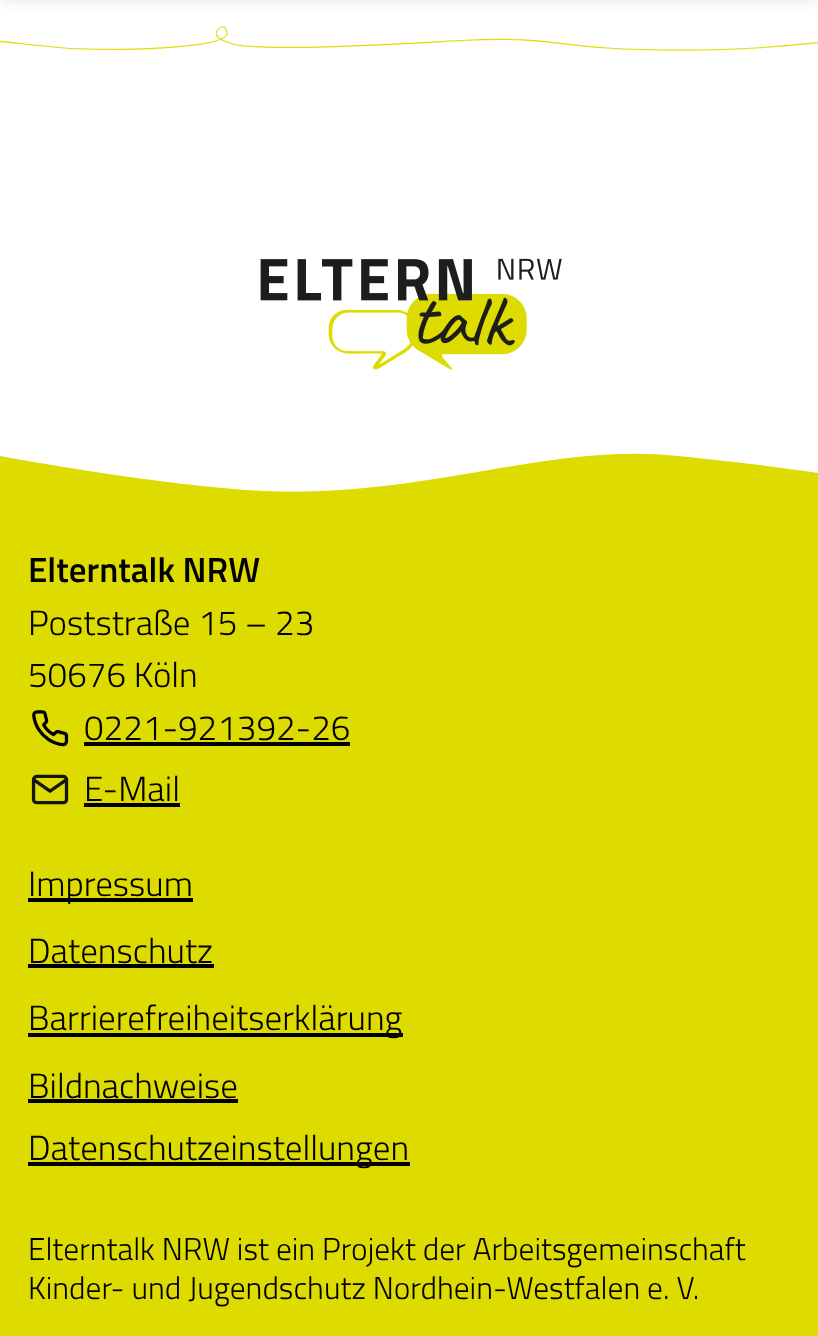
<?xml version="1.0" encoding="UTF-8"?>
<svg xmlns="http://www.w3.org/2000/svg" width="818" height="1336">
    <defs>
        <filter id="blur1" x="-50%" y="-200%" width="200%" height="500%"><feGaussianBlur stdDeviation="7"/></filter>
    </defs>
    <rect width="100%" height="100%" fill="#FFFFFF"/>
    <rect x="0" y="-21" width="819" height="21" fill="#000000" fill-opacity="0.1" filter="url(#blur1)"/>
    <image x="0" y="26" width="818" height="25" href="img_01.png"/>
    <image x="260" y="258" width="302" height="112" href="img_02.png"/>
    <path d="M 0 456 C 0 456 160 486 264 491 C 426 498 549 442 678 456 C 775 466 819 473 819 473 V 505 H 0 Z" fill="#DDDB00"/>
    <rect x="0" y="505" width="818" height="831" fill="#DDDB00"/>
    <text x="28" y="582" font-family="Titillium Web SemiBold" font-size="35" font-weight="600" fill="#000000">Elterntalk NRW</text>
    <text font-family="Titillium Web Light" font-size="35" font-weight="300" fill="#000000">
        <tspan x="28" y="635">Poststraße 15 – 23</tspan>
        <tspan x="28" y="687">50676 Köln</tspan>
    </text>
    <image x="32" y="710" width="37" height="37" href="img_03.png"/>
    <text x="84" y="740" font-family="Titillium Web Light" font-size="35" font-weight="300" fill="#000000">0221-921392-26</text>
    <rect x="84" y="742" width="266" height="4" fill="#000000"/>
    <image x="31" y="774" width="38" height="31" href="img_04.png"/>
    <text x="84" y="801" font-family="Titillium Web Light" font-size="35" font-weight="300" fill="#000000">E-Mail</text>
    <rect x="84" y="803" width="96" height="4" fill="#000000"/>
    <rect x="28" y="898" width="165" height="4" fill="#000000"/>
    <text font-family="Titillium Web Light" font-size="35" font-weight="300" fill="#000000">
        <tspan x="28" y="896">Impressum</tspan>
        <tspan x="28" y="963">Datenschutz</tspan>
    </text>
    <rect x="28" y="964" width="186" height="4" fill="#000000"/>
    <rect x="28" y="1033" width="375" height="4" fill="#000000"/>
    <text font-family="Titillium Web Light" font-size="35" font-weight="300" fill="#000000">
        <tspan x="28" y="1030">Barrierefreiheitserklärung</tspan>
        <tspan x="28" y="1098">Bildnachweise</tspan>
    </text>
    <rect x="28" y="1099" width="210" height="4" fill="#000000"/>
    <rect x="28" y="1162" width="382" height="4" fill="#000000"/>
    <text x="28" y="1160" font-family="Titillium Web Light" font-size="35" font-weight="300" fill="#000000">Datenschutzeinstellungen</text>
    <text font-family="Titillium Web Light" font-size="31.5" font-weight="300" fill="#000000">
        <tspan x="28" y="1260">Elterntalk NRW ist ein Projekt der Arbeitsgemeinschaft</tspan>
        <tspan x="28" y="1299">Kinder- und Jugendschutz Nordhein-Westfalen e. V.</tspan>
    </text>
</svg>
